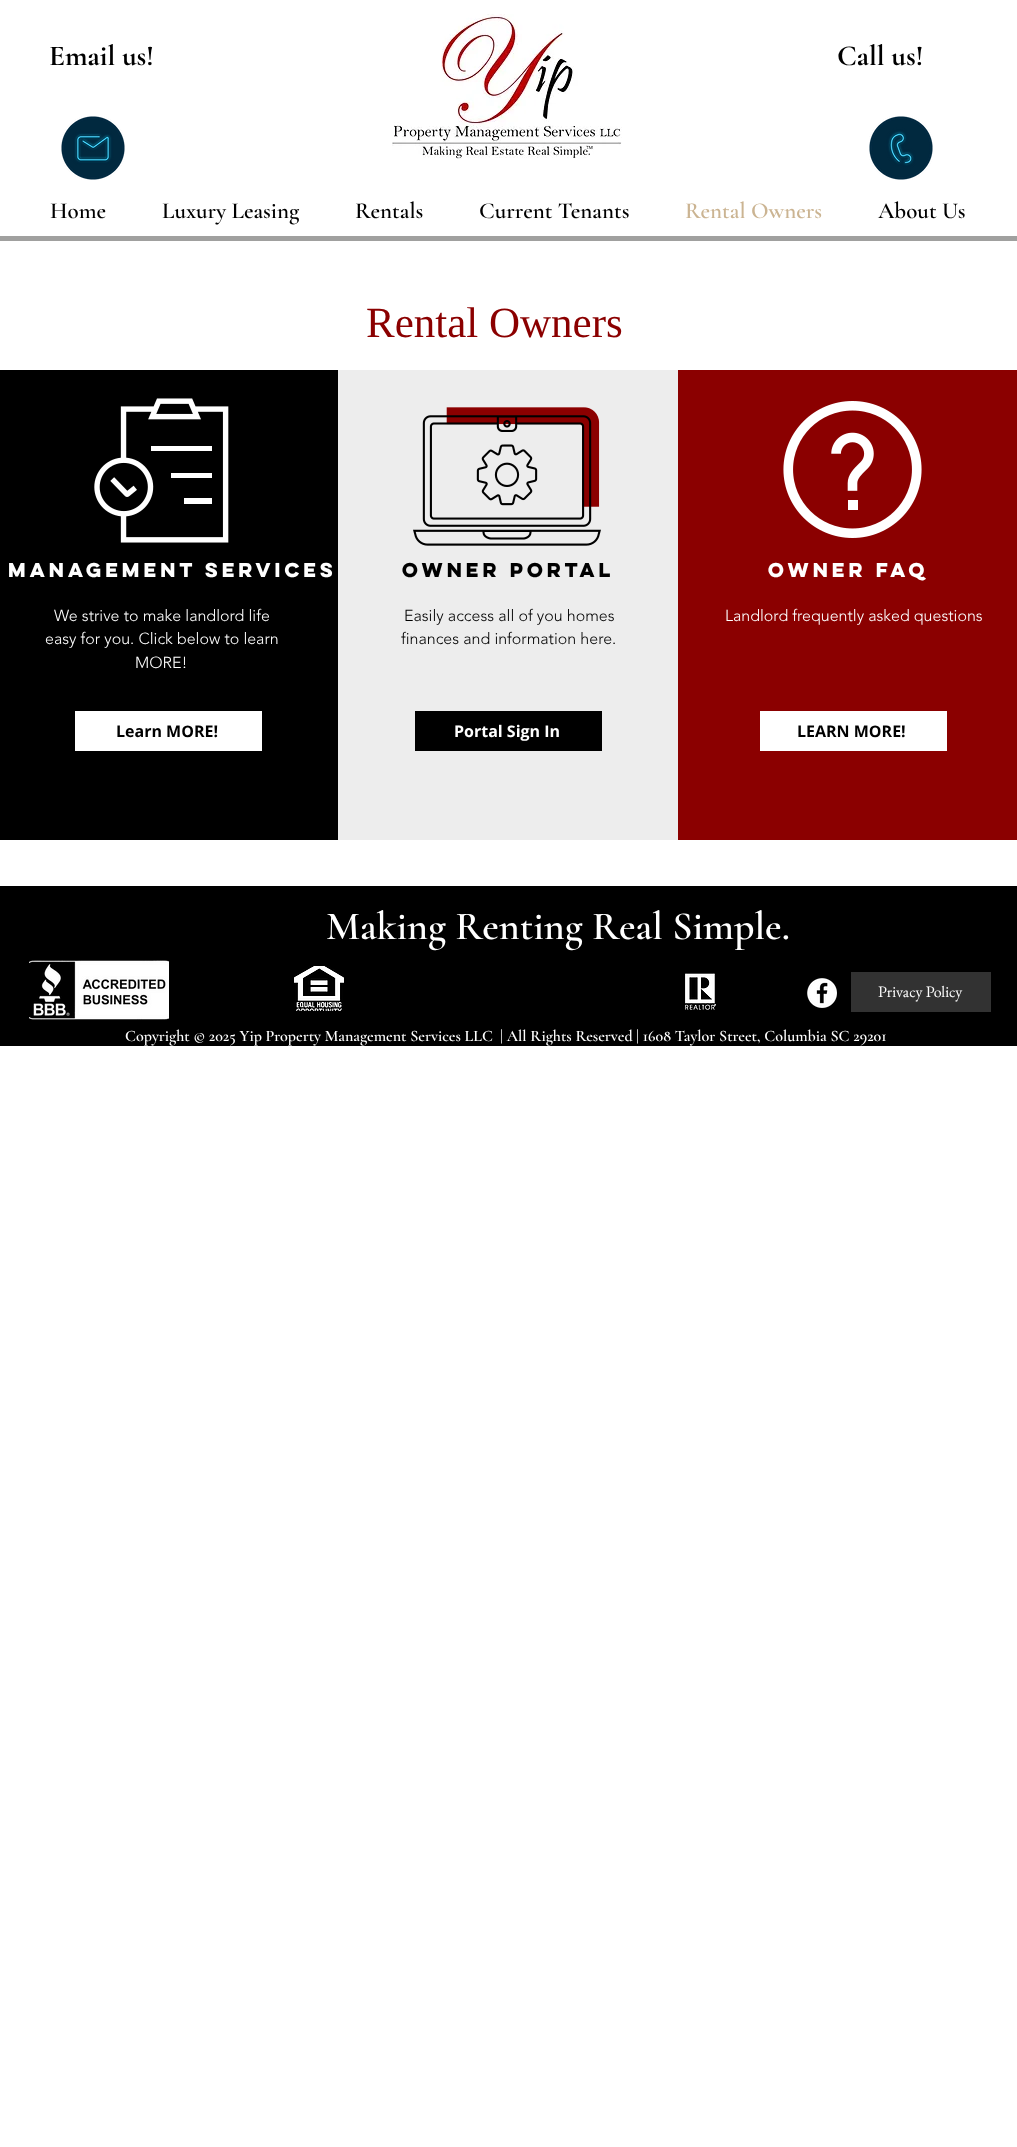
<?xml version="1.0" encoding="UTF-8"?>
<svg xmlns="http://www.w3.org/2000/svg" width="1017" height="2147">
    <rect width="100%" height="100%" fill="#FFFFFF"/>
    <text x="49" y="65" font-family="Cormorant Garamond" font-size="29" font-weight="700" fill="#000000">Email us!</text>
    <image x="392" y="14" width="230" height="145" href="img_01.png"/>
    <text x="837" y="65" font-family="Cormorant Garamond" font-size="29" font-weight="700" fill="#000000">Call us!</text>
    <image x="61" y="116" width="64" height="64" href="img_02.png"/>
    <image x="869" y="116" width="64" height="64" href="img_03.png"/>
    <text x="50" y="218" font-family="Cormorant Garamond" font-size="23" font-weight="600" fill="#000000">Home</text>
    <text x="162" y="218" font-family="Cormorant Garamond" font-size="23" font-weight="600" fill="#000000">Luxury Leasing</text>
    <text x="355" y="218" font-family="Cormorant Garamond" font-size="23" font-weight="600" fill="#000000">Rentals</text>
    <text x="479" y="218" font-family="Cormorant Garamond" font-size="23" font-weight="600" fill="#000000">Current Tenants</text>
    <text x="685" y="218" font-family="Cormorant Garamond" font-size="23" font-weight="600" fill="#CBB492">Rental Owners</text>
    <text x="878" y="218" font-family="Cormorant Garamond" font-size="23" font-weight="600" fill="#000000">About Us</text>
    <rect x="0" y="236" width="1017" height="5" fill="#A0A09F"/>
    <text x="366" y="337" font-family="Liberation Serif" font-size="43" fill="#8B0000">Rental Owners</text>
    <rect x="0" y="370" width="338" height="470" fill="#000000"/>
    <image x="94" y="398" width="135" height="145" href="img_04.png"/>
    <text x="8" y="577" font-family="'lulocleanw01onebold'" font-size="18" font-weight="700" fill="#FFFFFF">Management Services</text>
    <text x="54" y="621" font-family="'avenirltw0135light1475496'" font-size="16" font-weight="300" fill="#FFFFFF">We strive to make landlord life</text>
    <text x="45" y="644" font-family="'avenirltw0135light1475496'" font-size="16" font-weight="300" fill="#FFFFFF">easy for you. Click below to learn</text>
    <text x="135" y="668" font-family="'avenirltw0135light1475496'" font-size="16" font-weight="300" fill="#FFFFFF">MORE!</text>
    <rect x="75" y="711" width="187" height="40" fill="#FFFFFF"/>
    <text x="116" y="737" font-family="Open Sans" font-size="16" font-weight="700" fill="#000000">Learn MORE!</text>
    <rect x="338" y="370" width="340" height="470" fill="#EDEDED"/>
    <image x="413" y="407" width="188" height="139" href="img_05.png"/>
    <text x="402" y="577" font-family="'lulocleanw01onebold'" font-size="18" font-weight="700" fill="#000000">Owner portal</text>
    <text x="404" y="621" font-family="'avenirltw0135light1475496'" font-size="16" font-weight="300" fill="#000000">Easily access all of you homes</text>
    <text x="401" y="644" font-family="'avenirltw0135light1475496'" font-size="16" font-weight="300" fill="#000000">finances and information here.</text>
    <rect x="415" y="711" width="187" height="40" fill="#000000"/>
    <text x="454" y="737" font-family="Open Sans" font-size="16" font-weight="700" fill="#FFFFFF">Portal Sign In</text>
    <rect x="678" y="370" width="339" height="470" fill="#8B0000"/>
    <image x="783" y="401" width="139" height="137" href="img_06.png"/>
    <text x="768" y="577" font-family="'lulocleanw01onebold'" font-size="18" font-weight="700" fill="#FFFFFF">Owner FAQ</text>
    <text x="725" y="621" font-family="'avenirltw0135light1475496'" font-size="16" font-weight="300" fill="#FFFFFF">Landlord frequently asked questions</text>
    <rect x="760" y="711" width="187" height="40" fill="#FFFFFF"/>
    <text x="797" y="737" font-family="Open Sans" font-size="16" font-weight="700" fill="#000000">LEARN MORE!</text>
    <rect x="0" y="886" width="1017" height="160" fill="#000000"/>
    <text x="326" y="939" font-family="Cormorant Garamond" font-size="40" font-weight="600" fill="#FFFFFF">Making Renting Real Simple.</text>
    <image x="29" y="960" width="140" height="60" href="img_07.png"/>
    <image x="294" y="966" width="50" height="45" href="img_08.png"/>
    <image x="685" y="973" width="31" height="37" href="img_09.png"/>
    <image x="807" y="978" width="30" height="30" href="img_10.png"/>
    <rect x="851" y="972" width="140" height="40" fill="#323232"/>
    <text x="878" y="997" font-family="EB Garamond" font-size="16" fill="#FFFFFF">Privacy Policy</text>
    <text x="125" y="1041" font-family="Cormorant Garamond" font-size="16" font-weight="600" fill="#FFFFFF" xml:space="preserve">Copyright © 2025 Yip Property Management Services LLC  | All Rights Reserved | 1608 Taylor Street, Columbia SC 29201</text>
</svg>
